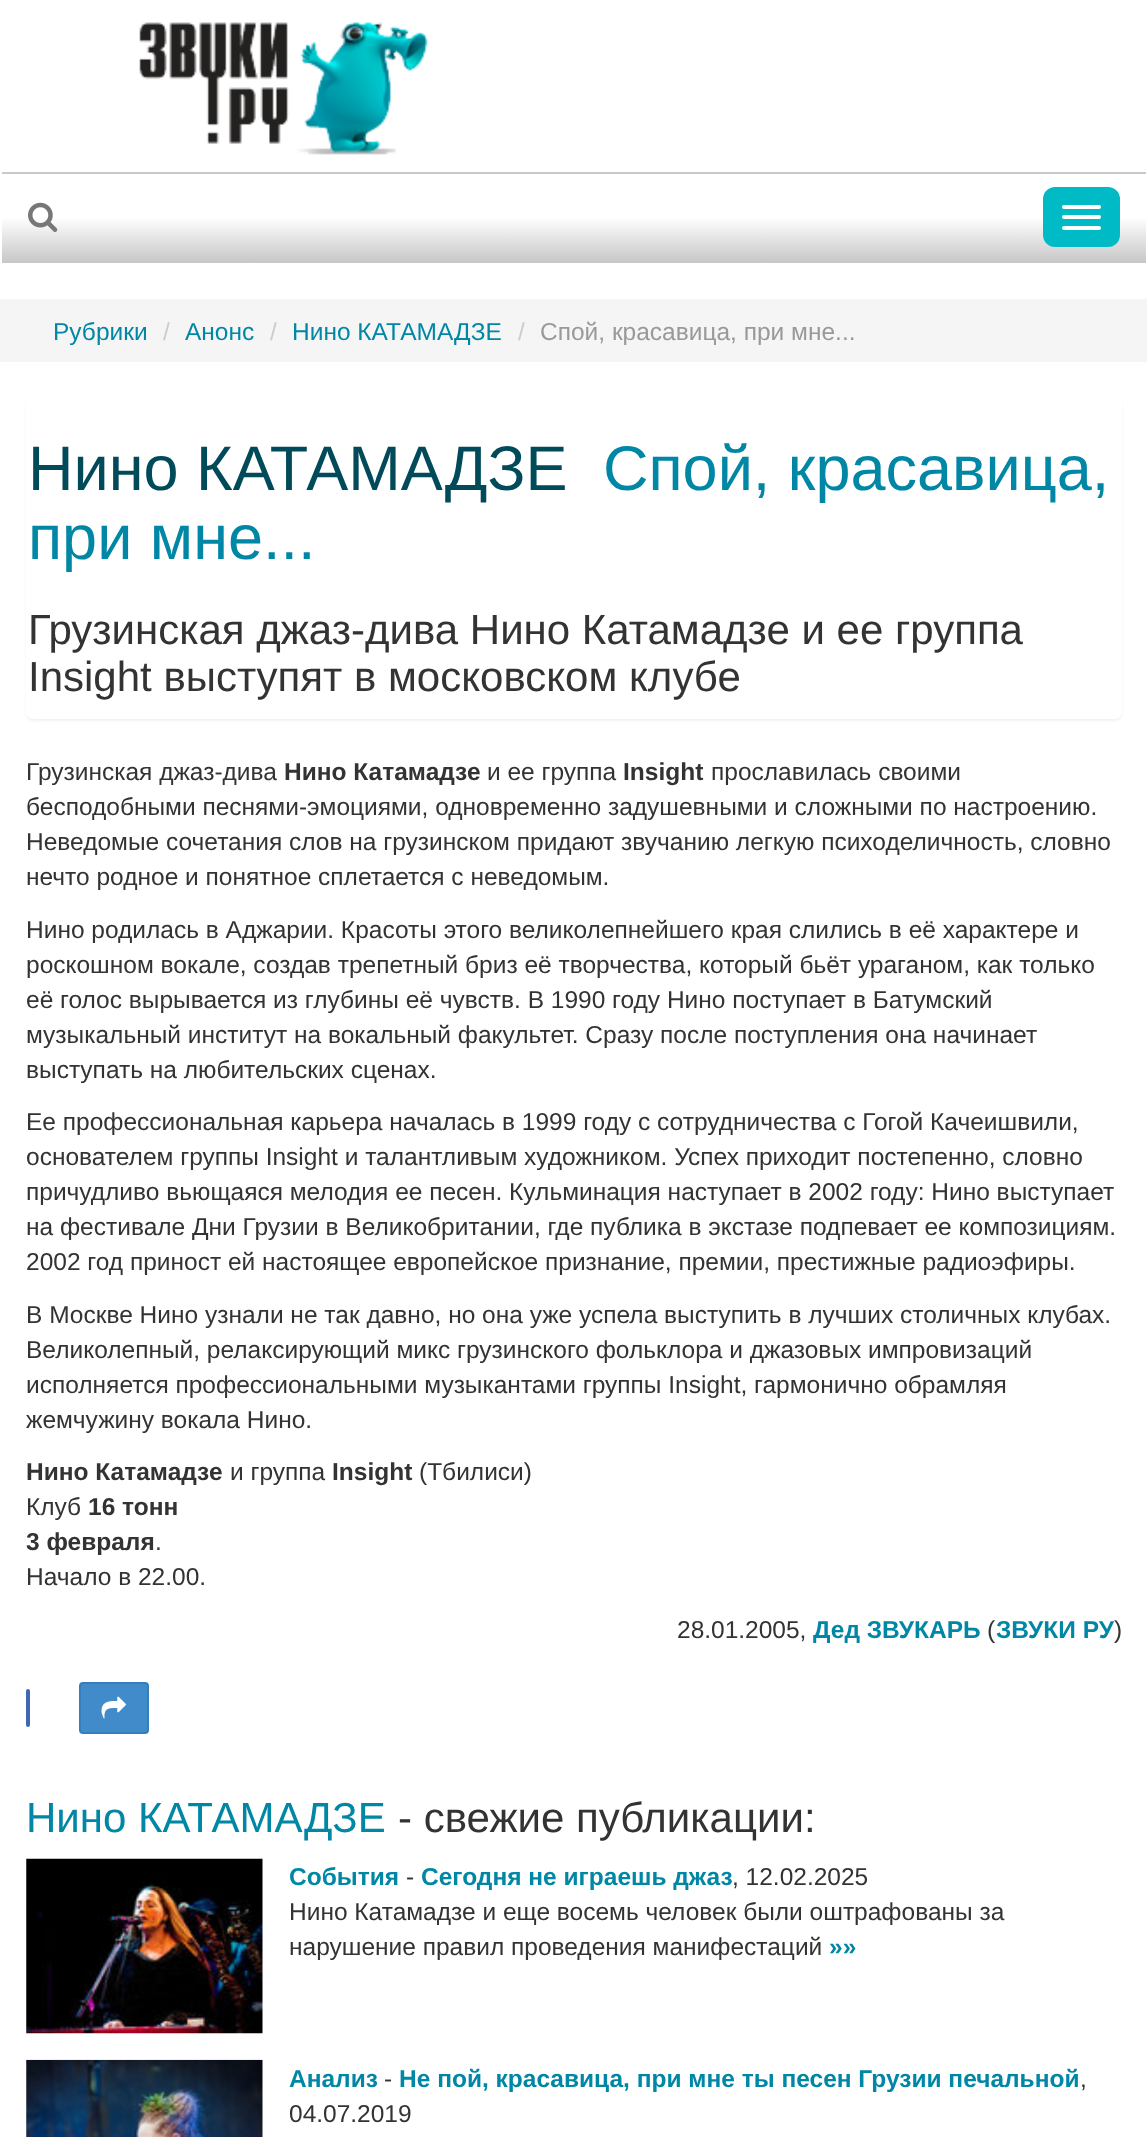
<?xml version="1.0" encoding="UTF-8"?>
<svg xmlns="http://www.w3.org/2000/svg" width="1147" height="2137">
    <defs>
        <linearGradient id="g1" gradientUnits="userSpaceOnUse" x1="574" y1="173" x2="574" y2="261"><stop offset="0" stop-color="#FFFFFF"/><stop offset="0.5" stop-color="#FFFFFF"/><stop offset="1" stop-color="#C9C9C9"/></linearGradient>
        <filter id="blur1" x="-50%" y="-200%" width="200%" height="500%"><feGaussianBlur stdDeviation="1"/></filter>
    </defs>
    <rect width="100%" height="100%" fill="#FFFFFF"/>
    <image x="139" y="22" width="289" height="133" href="img_01.png"/>
    <rect x="2" y="219" width="1144" height="42" fill="url(#g1)"/>
    <rect x="2" y="172" width="1144" height="2" fill="#C9C9C9"/>
    <rect x="2" y="261" width="1144" height="2" fill="#C9C9C9"/>
    <image x="28" y="202" width="30" height="30" href="img_02.png"/>
    <rect x="1043" y="187" width="77" height="60" rx="12" fill="#00BAC6"/>
    <rect x="1062" y="205" width="39" height="4" rx="2" fill="#FFFFFF"/>
    <rect x="1062" y="215" width="39" height="4" rx="2" fill="#FFFFFF"/>
    <rect x="1062" y="226" width="39" height="4" rx="2" fill="#FFFFFF"/>
    <rect x="0" y="299" width="1147" height="63" fill="#F5F5F5"/>
    <text x="53" y="340" font-family="Liberation Sans" font-size="24.5" fill="#0087A5">Рубрики</text>
    <text x="163" y="340" font-family="Liberation Sans" font-size="24.5" fill="#CCCCCC">/</text>
    <text x="185" y="340" font-family="Liberation Sans" font-size="24.5" fill="#0087A5">Анонс</text>
    <text x="270" y="340" font-family="Liberation Sans" font-size="24.5" fill="#CCCCCC">/</text>
    <text x="292" y="340" font-family="Liberation Sans" font-size="24.5" fill="#0087A5">Нино КАТАМАДЗЕ</text>
    <text x="518" y="340" font-family="Liberation Sans" font-size="24.5" fill="#CCCCCC">/</text>
    <text x="540" y="340" font-family="Liberation Sans" font-size="24.5" fill="#999999">Спой, красавица, при мне...</text>
    <rect x="26" y="399" width="1096" height="322" rx="7" fill="#000000" fill-opacity="0.05" filter="url(#blur1)"/>
    <rect x="26" y="397" width="1096" height="322" rx="7" fill="#FFFFFF"/>
    <text x="28" y="490" font-family="Liberation Sans" font-size="63" fill="#014A5A">Нино КАТАМАДЗЕ</text>
    <text x="603" y="490" font-family="Liberation Sans" font-size="63" fill="#0087A5">Спой, красавица,</text>
    <text x="28" y="559" font-family="Liberation Sans" font-size="63" fill="#0087A5">при мне...</text>
    <text font-family="Liberation Sans" font-size="42" fill="#333333">
        <tspan x="28" y="644">Грузинская джаз-дива Нино Катамадзе и ее группа</tspan>
        <tspan x="28" y="691">Insight выступят в московском клубе</tspan>
    </text>
    <text x="26" y="780" font-family="Liberation Sans" font-size="24.5" fill="#333333">Грузинская джаз-дива</text>
    <text x="284" y="780" font-family="Liberation Sans" font-size="24.5" font-weight="700" fill="#333333">Нино Катамадзе</text>
    <text x="487" y="780" font-family="Liberation Sans" font-size="24.5" fill="#333333">и ее группа</text>
    <text x="623" y="780" font-family="Liberation Sans" font-size="24.5" font-weight="700" fill="#333333">Insight</text>
    <text x="711" y="780" font-family="Liberation Sans" font-size="24.5" fill="#333333">прославилась своими</text>
    <text font-family="Liberation Sans" font-size="24.5" fill="#333333">
        <tspan x="26" y="815">бесподобными песнями-эмоциями, одновременно задушевными и сложными по настроению.</tspan>
        <tspan x="26" y="850">Неведомые сочетания слов на грузинском придают звучанию легкую психоделичность, словно</tspan>
        <tspan x="26" y="885">нечто родное и понятное сплетается с неведомым.</tspan>
    </text>
    <text font-family="Liberation Sans" font-size="24.5" fill="#333333">
        <tspan x="26" y="938">Нино родилась в Аджарии. Красоты этого великолепнейшего края слились в её характере и</tspan>
        <tspan x="26" y="973">роскошном вокале, создав трепетный бриз её творчества, который бьёт ураганом, как только</tspan>
        <tspan x="26" y="1008">её голос вырывается из глубины её чувств. В 1990 году Нино поступает в Батумский</tspan>
        <tspan x="26" y="1043">музыкальный институт на вокальный факультет. Сразу после поступления она начинает</tspan>
        <tspan x="26" y="1078">выступать на любительских сценах.</tspan>
    </text>
    <text font-family="Liberation Sans" font-size="24.5" fill="#333333">
        <tspan x="26" y="1130">Ее профессиональная карьера началась в 1999 году с сотрудничества с Гогой Качеишвили,</tspan>
        <tspan x="26" y="1165">основателем группы Insight и талантливым художником. Успех приходит постепенно, словно</tspan>
        <tspan x="26" y="1200">причудливо вьющаяся мелодия ее песен. Кульминация наступает в 2002 году: Нино выступает</tspan>
        <tspan x="26" y="1235">на фестивале Дни Грузии в Великобритании, где публика в экстазе подпевает ее композициям.</tspan>
        <tspan x="26" y="1270">2002 год приност ей настоящее европейское признание, премии, престижные радиоэфиры.</tspan>
    </text>
    <text font-family="Liberation Sans" font-size="24.5" fill="#333333">
        <tspan x="26" y="1323">B Москве Нино узнали не так давно, но она уже успела выступить в лучших столичных клубах.</tspan>
        <tspan x="26" y="1358">Великолепный, релаксирующий микс грузинского фольклора и джазовых импровизаций</tspan>
        <tspan x="26" y="1393">исполняется профессиональными музыкантами группы Insight, гармонично обрамляя</tspan>
        <tspan x="26" y="1428">жемчужину вокала Нино.</tspan>
    </text>
    <text x="26" y="1480" font-family="Liberation Sans" font-size="24.5" font-weight="700" fill="#333333">Нино Катамадзе</text>
    <text x="230" y="1480" font-family="Liberation Sans" font-size="24.5" fill="#333333">и группа</text>
    <text x="332" y="1480" font-family="Liberation Sans" font-size="24.5" font-weight="700" fill="#333333">Insight</text>
    <text x="419" y="1480" font-family="Liberation Sans" font-size="24.5" fill="#333333">(Тбилиси)</text>
    <text x="26" y="1515" font-family="Liberation Sans" font-size="24.5" fill="#333333">Клуб</text>
    <text x="88" y="1515" font-family="Liberation Sans" font-size="24.5" font-weight="700" fill="#333333">16 тонн</text>
    <text x="26" y="1550" font-family="Liberation Sans" font-size="24.5" font-weight="700" fill="#333333">3 февраля</text>
    <text x="155" y="1550" font-family="Liberation Sans" font-size="24.5" fill="#333333">.</text>
    <text x="26" y="1585" font-family="Liberation Sans" font-size="24.5" fill="#333333">Начало в 22.00.</text>
    <text x="677" y="1638" font-family="Liberation Sans" font-size="24.5" fill="#333333">28.01.2005,</text>
    <text x="813" y="1638" font-family="Liberation Sans" font-size="24.5" font-weight="700" fill="#0087A5">Дед ЗВУКАРЬ</text>
    <text x="987" y="1638" font-family="Liberation Sans" font-size="24.5" fill="#333333">(</text>
    <text x="996" y="1638" font-family="Liberation Sans" font-size="24.5" font-weight="700" fill="#0087A5">ЗВУКИ РУ</text>
    <text x="1114" y="1638" font-family="Liberation Sans" font-size="24.5" fill="#333333">)</text>
    <rect x="26" y="1689" width="4" height="38" rx="2" fill="#4267B2"/>
    <rect x="80" y="1683" width="68" height="50" rx="3" fill="#428BCA" stroke="#357EBD" stroke-width="2"/>
    <image x="101" y="1696" width="25" height="23" href="img_03.png"/>
    <text x="26" y="1832" font-family="Liberation Sans" font-size="42" fill="#0087A5">Нино КАТАМАДЗЕ</text>
    <text x="398" y="1832" font-family="Liberation Sans" font-size="42" fill="#333333">- свежие публикации:</text>
    <image x="26" y="1858" width="237" height="176" href="img_04.png"/>
    <text x="289" y="1885" font-family="Liberation Sans" font-size="24.5" font-weight="700" fill="#0087A5">События</text>
    <text x="406" y="1885" font-family="Liberation Sans" font-size="24.5" fill="#333333">-</text>
    <text x="421" y="1885" font-family="Liberation Sans" font-size="24.5" font-weight="700" fill="#0087A5">Сегодня не играешь джаз</text>
    <text x="732" y="1885" font-family="Liberation Sans" font-size="24.5" fill="#333333">, 12.02.2025</text>
    <text font-family="Liberation Sans" font-size="24.5" fill="#333333">
        <tspan x="289" y="1920">Нино Катамадзе и еще восемь человек были оштрафованы за</tspan>
        <tspan x="289" y="1955">нарушение правил проведения манифестаций</tspan>
    </text>
    <text x="829" y="1955" font-family="Liberation Sans" font-size="24.5" font-weight="700" fill="#0087A5">»»</text>
    <image x="26" y="2059" width="237" height="78" href="img_05.png"/>
    <text x="289" y="2087" font-family="Liberation Sans" font-size="24.5" font-weight="700" fill="#0087A5">Анализ</text>
    <text x="384" y="2087" font-family="Liberation Sans" font-size="24.5" fill="#333333">-</text>
    <text x="399" y="2087" font-family="Liberation Sans" font-size="24.5" font-weight="700" fill="#0087A5">Не пой, красавица, при мне ты песен Грузии печальной</text>
    <text x="1080" y="2087" font-family="Liberation Sans" font-size="24.5" fill="#333333">,</text>
    <text x="289" y="2122" font-family="Liberation Sans" font-size="24.5" fill="#333333">04.07.2019</text>
</svg>
